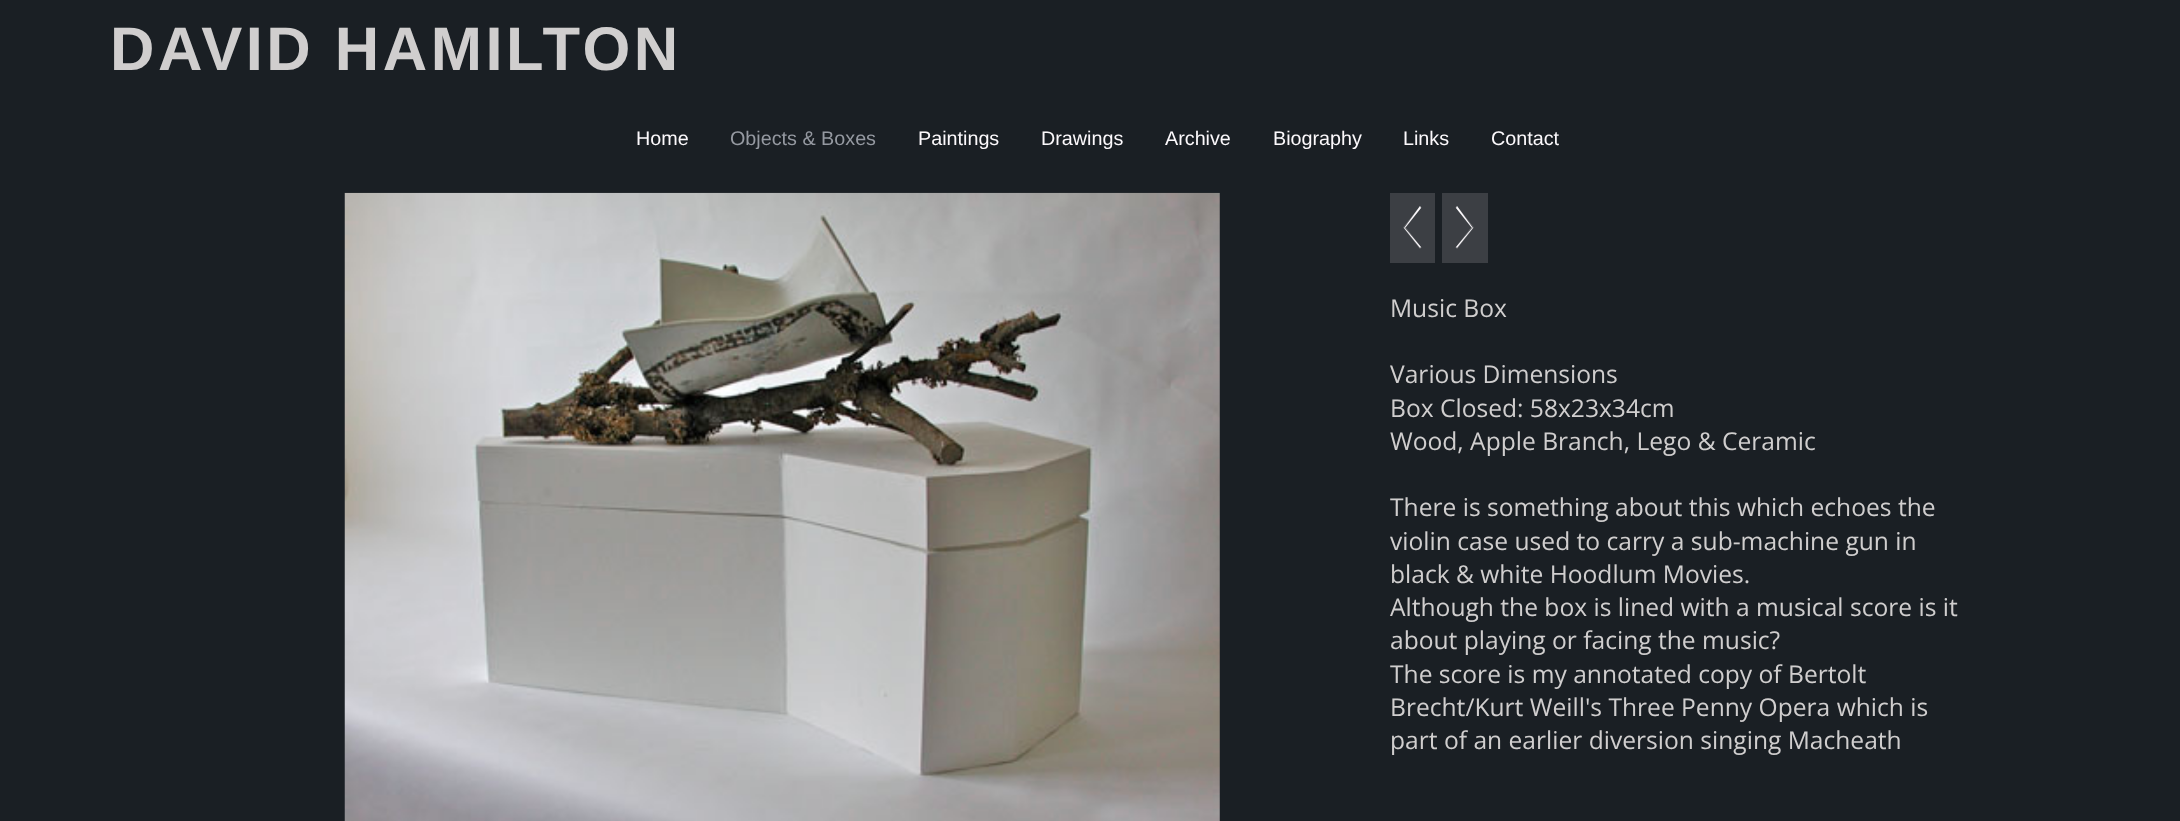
<?xml version="1.0" encoding="UTF-8"?>
<svg xmlns="http://www.w3.org/2000/svg" width="2180" height="821">
    <rect width="100%" height="100%" fill="#1A1F24"/>
    <text x="110" y="70" font-family="Liberation Sans" font-size="61.5" font-weight="700" letter-spacing="3.5" fill="#D0CECE">DAVID HAMILTON</text>
    <text x="636" y="145" font-family="Liberation Sans" font-size="19.75" fill="#FCF9FC">Home</text>
    <text x="730" y="145" font-family="Liberation Sans" font-size="19.75" fill="#9599A1">Objects &amp; Boxes</text>
    <text x="918" y="145" font-family="Liberation Sans" font-size="19.75" fill="#FCF9FC">Paintings</text>
    <text x="1041" y="145" font-family="Liberation Sans" font-size="19.75" fill="#FCF9FC">Drawings</text>
    <text x="1165" y="145" font-family="Liberation Sans" font-size="19.75" fill="#FCF9FC">Archive</text>
    <text x="1273" y="145" font-family="Liberation Sans" font-size="19.75" fill="#FCF9FC">Biography</text>
    <text x="1403" y="145" font-family="Liberation Sans" font-size="19.75" fill="#FCF9FC">Links</text>
    <text x="1491" y="145" font-family="Liberation Sans" font-size="19.75" fill="#FCF9FC">Contact</text>
    <image x="344" y="192" width="876" height="629" href="img_01.png"/>
    <rect x="1390" y="193" width="45" height="70" fill="#3C3F44"/>
    <path d="M 1420 248 L 1404 228 L 1420 206 L 1421 208 L 1405 228 L 1421 247 Z" fill="#FCF9FC"/>
    <path d="M 1420 248.5 L 1403.5 227.5 L 1420 206.5 L 1421 207.5 L 1405.5 227.5 L 1421 247.5 Z" fill="none" stroke="#FCF9FC" stroke-width="0.2"/>
    <rect x="1442" y="193" width="46" height="70" fill="#3C3F44"/>
    <path d="M 1457 248 L 1456 247 L 1472 228 L 1456 208 L 1457 206 L 1473 228 Z" fill="#FCF9FC"/>
    <path d="M 1457 248.5 L 1456 247.5 L 1471.5 227.5 L 1456 207.5 L 1457 206.5 L 1473.5 227.5 Z" fill="none" stroke="#FCF9FC" stroke-width="0.2"/>
    <text x="1390" y="317" font-family="Open Sans" font-size="24.6" fill="#D0CECE">Music Box</text>
    <text font-family="Open Sans" font-size="24.6" fill="#D0CECE">
        <tspan x="1390" y="383">Various Dimensions</tspan>
        <tspan x="1390" y="417">Box Closed: 58x23x34cm</tspan>
        <tspan x="1390" y="450">Wood, Apple Branch, Lego &amp; Ceramic</tspan>
    </text>
    <text font-family="Open Sans" font-size="24.6" fill="#D0CECE">
        <tspan x="1390" y="516">There is something about this which echoes the</tspan>
        <tspan x="1390" y="550">violin case used to carry a sub-machine gun in</tspan>
        <tspan x="1390" y="583">black &amp; white Hoodlum Movies.</tspan>
        <tspan x="1390" y="616">Although the box is lined with a musical score is it</tspan>
        <tspan x="1390" y="649">about playing or facing the music?</tspan>
        <tspan x="1390" y="683">The score is my annotated copy of Bertolt</tspan>
        <tspan x="1390" y="716">Brecht/Kurt Weill's Three Penny Opera which is</tspan>
        <tspan x="1390" y="749">part of an earlier diversion singing Macheath</tspan>
    </text>
</svg>
